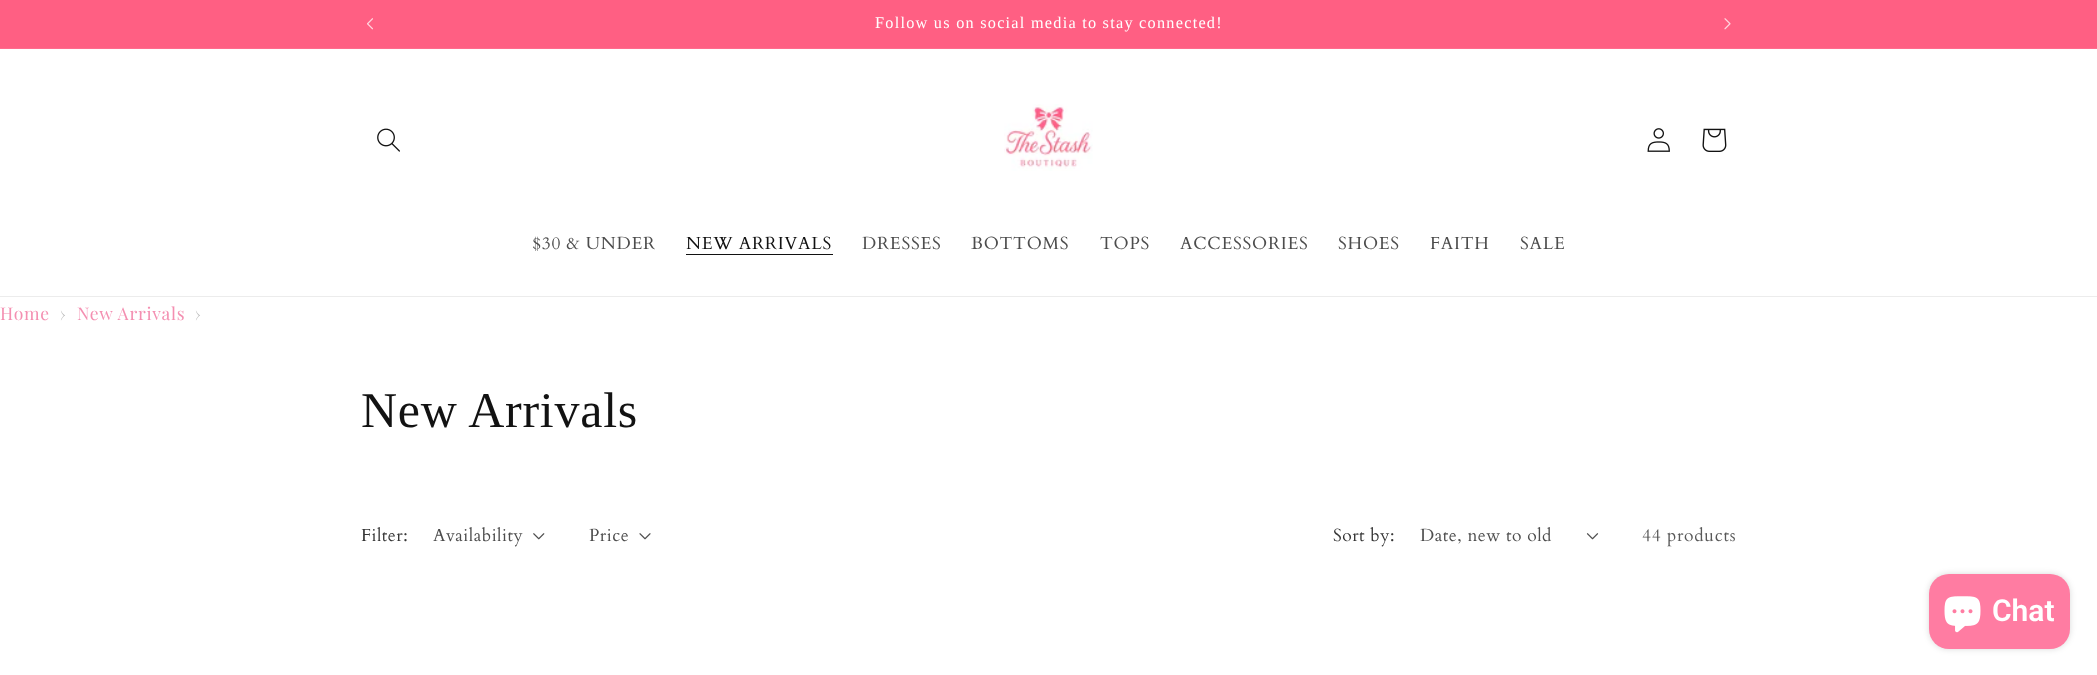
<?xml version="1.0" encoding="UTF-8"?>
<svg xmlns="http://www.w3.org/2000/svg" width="2097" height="675">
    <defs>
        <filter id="blur1" x="-50%" y="-200%" width="200%" height="500%"><feGaussianBlur stdDeviation="3"/></filter>
    </defs>
    <rect width="100%" height="100%" fill="#FFFFFF"/>
    <rect x="0" y="0" width="2097" height="48" fill="#FF5F83"/>
    <rect x="0" y="48" width="2097" height="1" fill="#FF6C8D"/>
    <image x="367" y="18" width="6" height="12" href="img_01.png"/>
    <text x="875" y="28" font-family="Liberation Serif" font-size="16.25" letter-spacing="1.25" fill="#FFFFFF">Follow us on social media to stay connected!</text>
    <image x="1724" y="18" width="7" height="12" href="img_02.png"/>
    <rect x="0" y="296" width="2097" height="1" fill="#ECECEC"/>
    <image x="377" y="128" width="23" height="24" href="img_03.png"/>
    <image x="1004" y="104" width="89" height="67" href="img_04.png"/>
    <image x="1647" y="128" width="23" height="24" href="img_05.png"/>
    <image x="1702" y="128" width="25" height="24" href="img_06.png"/>
    <text x="532" y="249" font-family="Cardo" font-size="17.5" letter-spacing="0.75" fill="#4D4D4D">$30 &amp; UNDER</text>
    <text x="686" y="249" font-family="Cardo" font-size="17.5" letter-spacing="0.75" fill="#121212">NEW ARRIVALS</text>
    <rect x="686" y="254" width="147" height="1" fill="#121212"/>
    <text x="862" y="249" font-family="Cardo" font-size="17.5" letter-spacing="0.75" fill="#4D4D4D">DRESSES</text>
    <text x="971" y="249" font-family="Cardo" font-size="17.5" letter-spacing="0.75" fill="#4D4D4D">BOTTOMS</text>
    <text x="1100" y="249" font-family="Cardo" font-size="17.5" letter-spacing="0.75" fill="#4D4D4D">TOPS</text>
    <text x="1180" y="249" font-family="Cardo" font-size="17.5" letter-spacing="0.75" fill="#4D4D4D">ACCESSORIES</text>
    <text x="1338" y="249" font-family="Cardo" font-size="17.5" letter-spacing="0.75" fill="#4D4D4D">SHOES</text>
    <text x="1430" y="249" font-family="Cardo" font-size="17.5" letter-spacing="0.75" fill="#4D4D4D">FAITH</text>
    <text x="1520" y="249" font-family="Cardo" font-size="17.5" letter-spacing="0.75" fill="#4D4D4D">SALE</text>
    <text x="0" y="320" font-family="Playfair Display" font-size="17.5" letter-spacing="0.75" fill="#F48FB1">Home</text>
    <text x="60" y="320" font-family="Playfair Display" font-size="17.5" letter-spacing="0.75" fill="#BBBBBB">›</text>
    <text x="77" y="320" font-family="Playfair Display" font-size="17.5" letter-spacing="0.75" fill="#F48FB1">New Arrivals</text>
    <text x="195" y="320" font-family="Playfair Display" font-size="17.5" letter-spacing="0.75" fill="#BBBBBB">›</text>
    <text x="361" y="427" font-family="Liberation Serif" font-size="50" letter-spacing="0.75" fill="#121212">New Arrivals</text>
    <text x="361" y="541" font-family="Cardo" font-size="17.5" letter-spacing="0.5" fill="#363636">Filter:</text>
    <text x="433" y="541" font-family="Cardo" font-size="17.5" letter-spacing="0.5" fill="#4D4D4D">Availability</text>
    <image x="533" y="533" width="12" height="7" href="img_07.png"/>
    <text x="589" y="541" font-family="Cardo" font-size="17.5" letter-spacing="0.5" fill="#4D4D4D">Price</text>
    <image x="639" y="533" width="12" height="7" href="img_08.png"/>
    <text x="1333" y="541" font-family="Cardo" font-size="17.5" letter-spacing="0.5" fill="#363636">Sort by:</text>
    <text x="1420" y="541" font-family="Cardo" font-size="17.5" letter-spacing="0.5" fill="#4D4D4D">Date, new to old</text>
    <image x="1586" y="533" width="13" height="7" href="img_09.png"/>
    <text x="1642" y="541" font-family="Cardo" font-size="17.5" letter-spacing="0.75" fill="#595959">44 products</text>
    <rect x="1929" y="574" width="141" height="75" rx="20" fill="#000000" fill-opacity="0.15" filter="url(#blur1)"/>
    <rect x="1929" y="574" width="141" height="75" rx="20" fill="#FF7CA2"/>
    <image x="1944" y="596" width="37" height="37" href="img_10.png"/>
    <text x="1992" y="621" font-family="Roboto" font-size="30" font-weight="600" fill="#FFFFFF">Chat</text>
</svg>
